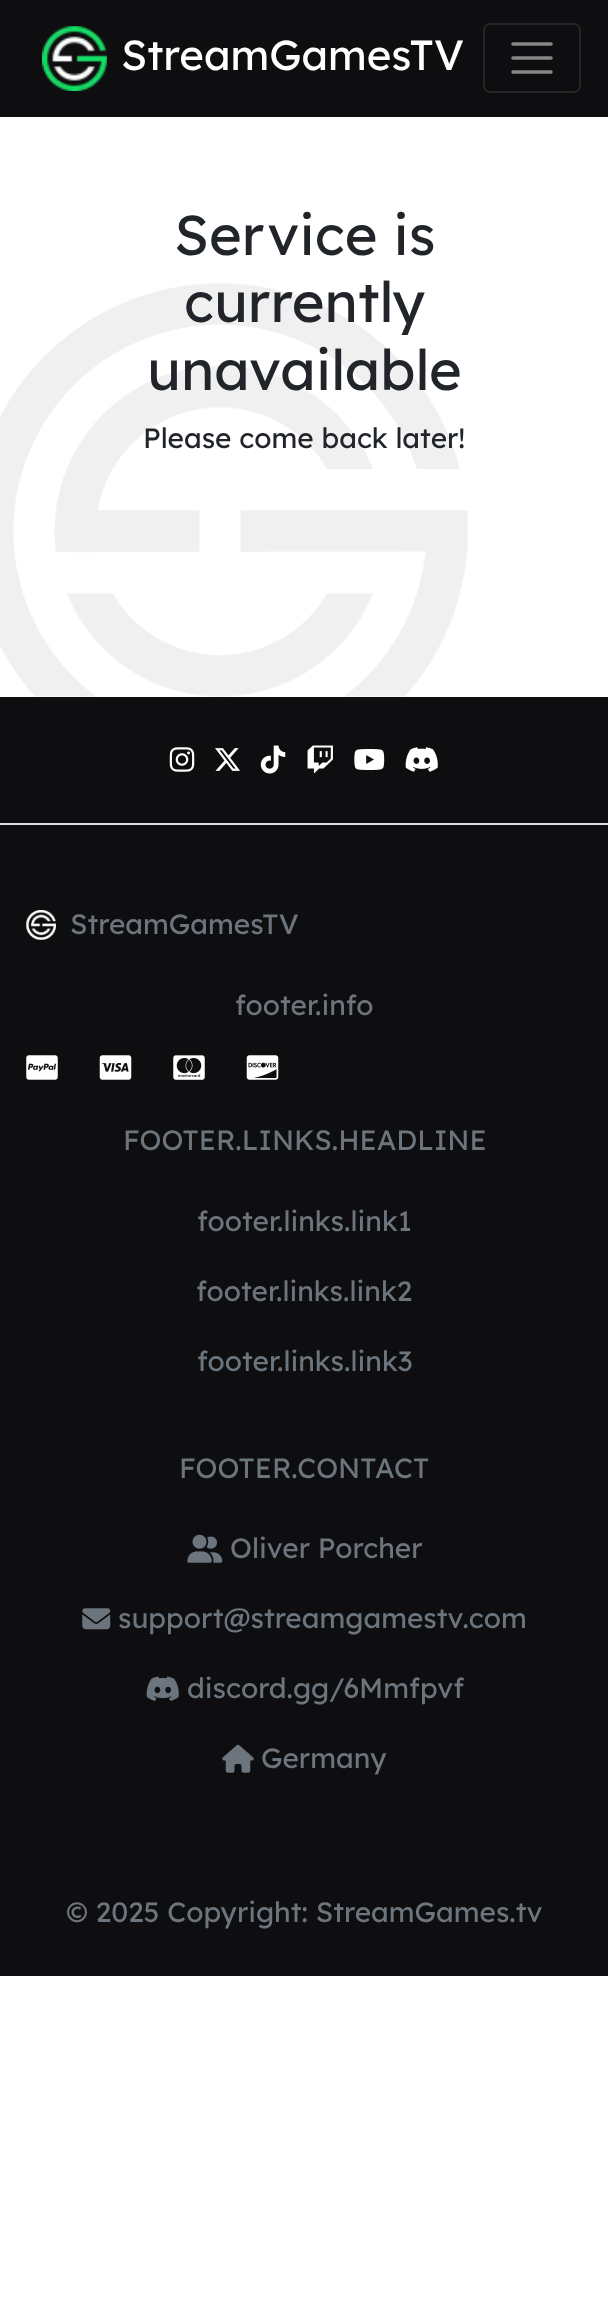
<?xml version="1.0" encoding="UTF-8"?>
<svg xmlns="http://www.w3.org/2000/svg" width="608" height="2321">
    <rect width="100%" height="100%" fill="#FFFFFF"/>
    <rect x="0" y="0" width="608" height="117" fill="#0E0E10"/>
    <image x="42" y="26" width="65" height="65" href="img_01.png"/>
    <text x="121" y="70" font-family="Lexend Deca" font-size="42" fill="#FFFFFF">StreamGamesTV</text>
    <rect x="484" y="24" width="96" height="68" rx="6" fill="none" stroke="#262628" stroke-width="2"/>
    <path d="M 513 44 H 551 M 513 58 H 551 M 513 72 H 551" fill="none" stroke="#878788" stroke-width="3.5" stroke-linecap="round"/>
    <image x="0" y="283" width="468" height="414" href="img_02.png"/>
    <text x="174" y="255" font-family="Lexend Deca" font-size="56" fill="#212529">Service is</text>
    <text x="184" y="322" font-family="Lexend Deca" font-size="56" fill="#212529">currently</text>
    <text x="147" y="390" font-family="Lexend Deca" font-size="56" fill="#212529">unavailable</text>
    <text x="143" y="448" font-family="Lexend Deca" font-size="28" fill="#212529">Please come back later!</text>
    <rect x="0" y="697" width="608" height="1279" fill="#0E0E10"/>
    <rect x="0" y="823" width="608" height="2" fill="#DEE2E6"/>
    <image x="169" y="747" width="26" height="25" href="img_03.png"/>
    <image x="215" y="748" width="25" height="23" href="img_04.png"/>
    <image x="260" y="745" width="26" height="29" href="img_05.png"/>
    <image x="307" y="745" width="26" height="29" href="img_06.png"/>
    <image x="354" y="749" width="31" height="21" href="img_07.png"/>
    <image x="405" y="747" width="33" height="25" href="img_08.png"/>
    <image x="26" y="910" width="30" height="30" href="img_09.png"/>
    <text x="70" y="934" font-family="Lexend Deca" font-size="28" fill="#6C757D">StreamGamesTV</text>
    <text x="235" y="1015" font-family="Lexend Deca" font-size="28" fill="#6C757D">footer.info</text>
    <image x="26" y="1055" width="32" height="25" href="img_10.png"/>
    <image x="99" y="1055" width="33" height="25" href="img_11.png"/>
    <image x="173" y="1055" width="32" height="25" href="img_12.png"/>
    <image x="246" y="1055" width="33" height="25" href="img_13.png"/>
    <text x="123" y="1150" font-family="Lexend Deca" font-size="28" fill="#6C757D">FOOTER.LINKS.HEADLINE</text>
    <text x="197" y="1231" font-family="Lexend Deca" font-size="28" fill="#6C757D">footer.links.link1</text>
    <text x="196" y="1301" font-family="Lexend Deca" font-size="28" fill="#6C757D">footer.links.link2</text>
    <text x="197" y="1371" font-family="Lexend Deca" font-size="28" fill="#6C757D">footer.links.link3</text>
    <text x="179" y="1478" font-family="Lexend Deca" font-size="28" fill="#6C757D">FOOTER.CONTACT</text>
    <image x="187" y="1534" width="36" height="29" href="img_14.png"/>
    <text x="230" y="1558" font-family="Lexend Deca" font-size="28" fill="#6C757D">Oliver Porcher</text>
    <image x="82" y="1608" width="29" height="22" href="img_15.png"/>
    <text x="118" y="1628" font-family="Lexend Deca" font-size="28" fill="#6C757D">support@streamgamestv.com</text>
    <image x="146" y="1676" width="33" height="25" href="img_16.png"/>
    <text x="187" y="1698" font-family="Lexend Deca" font-size="28" fill="#6C757D">discord.gg/6Mmfpvf</text>
    <image x="222" y="1744" width="32" height="29" href="img_17.png"/>
    <text x="261" y="1768" font-family="Lexend Deca" font-size="28" fill="#6C757D">Germany</text>
    <text x="66" y="1922" font-family="Lexend Deca" font-size="28" fill="#6C757D">© 2025 Copyright: StreamGames.tv</text>
</svg>
